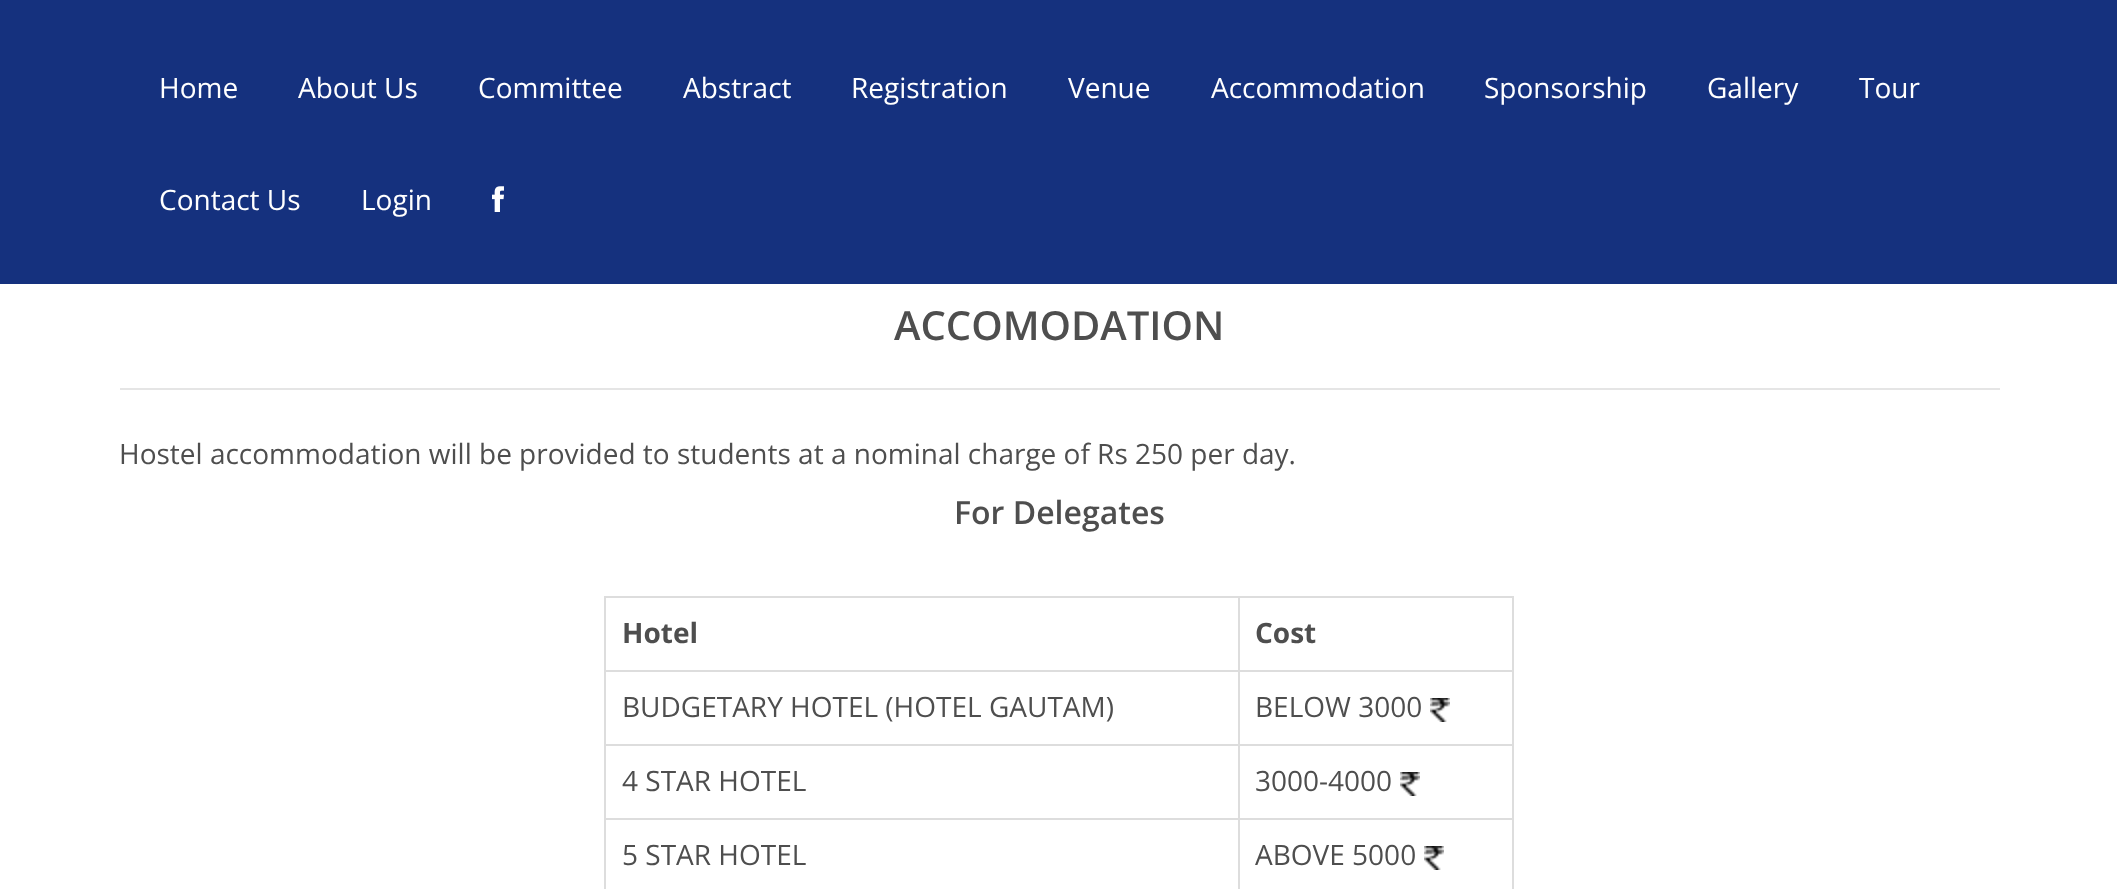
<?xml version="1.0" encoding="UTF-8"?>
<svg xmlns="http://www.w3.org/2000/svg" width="2117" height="889">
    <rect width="100%" height="100%" fill="#FFFFFF"/>
    <rect x="0" y="0" width="2117" height="284" fill="#15317E"/>
    <text x="159" y="98" font-family="Open Sans" font-size="28" fill="#FFFFFF">Home</text>
    <text x="298" y="98" font-family="Open Sans" font-size="28" fill="#FFFFFF">About Us</text>
    <text x="478" y="98" font-family="Open Sans" font-size="28" fill="#FFFFFF">Committee</text>
    <text x="683" y="98" font-family="Open Sans" font-size="28" fill="#FFFFFF">Abstract</text>
    <text x="851" y="98" font-family="Open Sans" font-size="28" fill="#FFFFFF">Registration</text>
    <text x="1068" y="98" font-family="Open Sans" font-size="28" fill="#FFFFFF">Venue</text>
    <text x="1211" y="98" font-family="Open Sans" font-size="28" fill="#FFFFFF">Accommodation</text>
    <text x="1484" y="98" font-family="Open Sans" font-size="28" fill="#FFFFFF">Sponsorship</text>
    <text x="1707" y="98" font-family="Open Sans" font-size="28" fill="#FFFFFF">Gallery</text>
    <text x="1859" y="98" font-family="Open Sans" font-size="28" fill="#FFFFFF">Tour</text>
    <text x="159" y="210" font-family="Open Sans" font-size="28" fill="#FFFFFF">Contact Us</text>
    <text x="361" y="210" font-family="Open Sans" font-size="28" fill="#FFFFFF">Login</text>
    <image x="492" y="186" width="12" height="26" href="img_01.png"/>
    <text x="894" y="340" font-family="Open Sans" font-size="40" font-weight="600" fill="#4E4E4E">ACCOMODATION</text>
    <rect x="120" y="388" width="1880" height="2" fill="#E5E5E5"/>
    <text x="119" y="464" font-family="Open Sans" font-size="28" fill="#4E4E4E">Hostel accommodation will be provided to students at a nominal charge of Rs 250 per day.</text>
    <text x="954" y="524" font-family="Open Sans" font-size="32" font-weight="600" fill="#4E4E4E">For Delegates</text>
    <rect x="604" y="596" width="910" height="2" fill="#DDDDDD"/>
    <rect x="1512" y="596" width="2" height="293" fill="#DDDDDD"/>
    <rect x="604" y="596" width="2" height="293" fill="#DDDDDD"/>
    <text x="622" y="643" font-family="Open Sans" font-size="28" font-weight="700" fill="#4E4E4E">Hotel</text>
    <rect x="1238" y="670" width="276" height="2" fill="#DDDDDD"/>
    <rect x="1238" y="744" width="276" height="2" fill="#DDDDDD"/>
    <rect x="1238" y="818" width="276" height="2" fill="#DDDDDD"/>
    <rect x="1238" y="818" width="2" height="71" fill="#DDDDDD"/>
    <rect x="604" y="818" width="636" height="2" fill="#DDDDDD"/>
    <rect x="1238" y="744" width="2" height="76" fill="#DDDDDD"/>
    <rect x="604" y="744" width="636" height="2" fill="#DDDDDD"/>
    <rect x="1238" y="670" width="2" height="76" fill="#DDDDDD"/>
    <rect x="604" y="670" width="636" height="2" fill="#DDDDDD"/>
    <rect x="1238" y="596" width="2" height="76" fill="#DDDDDD"/>
    <text x="1255" y="643" font-family="Open Sans" font-size="28" font-weight="700" fill="#4E4E4E">Cost</text>
    <text x="622" y="717" font-family="Open Sans" font-size="28" fill="#4E4E4E">BUDGETARY HOTEL (HOTEL GAUTAM)</text>
    <text x="1255" y="717" font-family="Open Sans" font-size="28" fill="#4E4E4E">BELOW 3000</text>
    <image x="1430" y="698" width="20" height="24" href="img_02.png"/>
    <text x="622" y="791" font-family="Open Sans" font-size="28" fill="#4E4E4E">4 STAR HOTEL</text>
    <text x="1255" y="791" font-family="Open Sans" font-size="28" fill="#4E4E4E">3000-4000</text>
    <image x="1400" y="772" width="20" height="24" href="img_02.png"/>
    <text x="622" y="865" font-family="Open Sans" font-size="28" fill="#4E4E4E">5 STAR HOTEL</text>
    <text x="1255" y="865" font-family="Open Sans" font-size="28" fill="#4E4E4E">ABOVE 5000</text>
    <image x="1424" y="846" width="20" height="24" href="img_02.png"/>
</svg>
